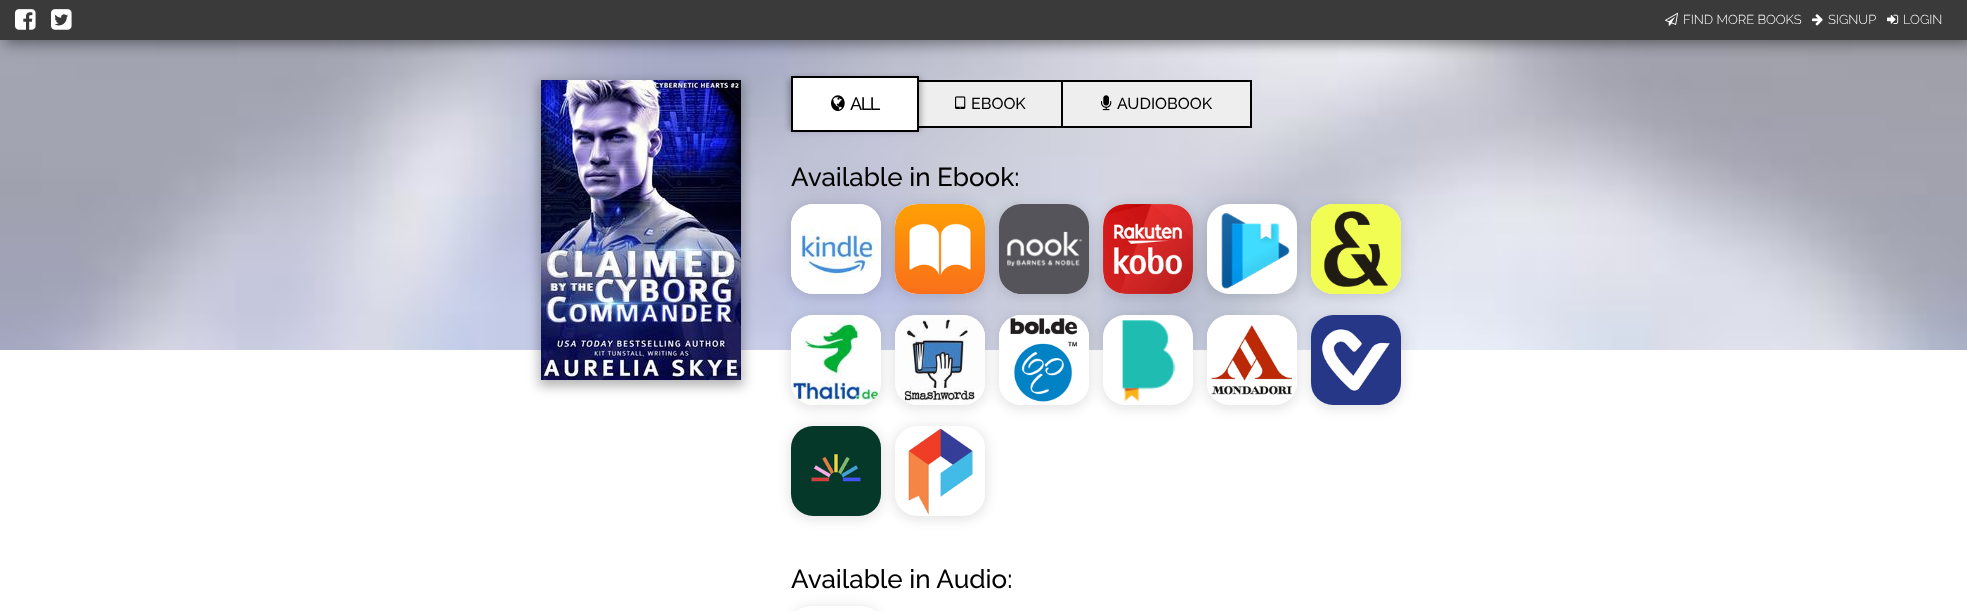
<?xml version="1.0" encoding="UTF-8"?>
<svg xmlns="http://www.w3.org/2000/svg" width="1967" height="611">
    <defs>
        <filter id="blur1" x="-50%" y="-200%" width="200%" height="500%"><feGaussianBlur stdDeviation="7"/></filter>
        <filter id="blur2" x="-50%" y="-200%" width="200%" height="500%"><feGaussianBlur stdDeviation="6"/></filter>
        <filter id="blur3" x="-50%" y="-200%" width="200%" height="500%"><feGaussianBlur stdDeviation="3"/></filter>
    </defs>
    <rect width="100%" height="100%" fill="#FFFFFF"/>
    <image x="0" y="40" width="1967" height="310" href="img_01.png"/>
    <rect x="4" y="4" width="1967" height="40" fill="#000000" fill-opacity="0.4" filter="url(#blur1)"/>
    <rect x="0" y="0" width="1967" height="40" fill="#3A3A3A"/>
    <image x="15" y="9" width="21" height="21" href="img_02.png"/>
    <image x="51" y="9" width="21" height="21" href="img_03.png"/>
    <image x="1665" y="12" width="13" height="14" href="img_04.png"/>
    <text x="1683" y="24" font-family="Raleway" font-size="13" font-weight="300" fill="#FFFFFF">FIND MORE BOOKS</text>
    <image x="1812" y="14" width="11" height="12" href="img_05.png"/>
    <text x="1828" y="24" font-family="Raleway" font-size="13" font-weight="300" fill="#FFFFFF">SIGNUP</text>
    <image x="1887" y="14" width="12" height="10" href="img_06.png"/>
    <text x="1903" y="24" font-family="Raleway" font-size="13" font-weight="300" fill="#FFFFFF">LOGIN</text>
    <rect x="539" y="82" width="204" height="304" fill="#000000" fill-opacity="0.3" filter="url(#blur2)"/>
    <image x="541" y="80" width="200" height="300" href="img_07.png"/>
    <rect x="919" y="82" width="142" height="44" fill="#EEEEEE"/>
    <rect x="916" y="81" width="148" height="46" fill="none" stroke="#000000" stroke-width="2"/>
    <rect x="789" y="78" width="132" height="52" fill="#000000" fill-opacity="0.3" filter="url(#blur3)"/>
    <rect x="792" y="77" width="126" height="54" fill="#FFFFFF" stroke="#000000" stroke-width="2"/>
    <image x="831" y="95" width="14" height="17" href="img_08.png"/>
    <text x="850" y="110" font-family="Raleway" font-size="18" font-weight="500" letter-spacing="-1.5" fill="#000000">ALL</text>
    <image x="955" y="96" width="11" height="13" href="img_09.png"/>
    <text x="971" y="109" font-family="Raleway" font-size="16" font-weight="500" fill="#000000">EBOOK</text>
    <rect x="1062" y="81" width="189" height="46" fill="#EEEEEE" stroke="#000000" stroke-width="2"/>
    <image x="1101" y="95" width="11" height="16" href="img_10.png"/>
    <text x="1117" y="109" font-family="Raleway" font-size="16" font-weight="500" fill="#000000">AUDIOBOOK</text>
    <rect x="789" y="204" width="94" height="94" rx="24" fill="#000000" fill-opacity="0.1" filter="url(#blur2)"/>
    <rect x="791" y="204" width="90" height="90" rx="22" fill="#FFFFFF"/>
    <image x="791" y="204" width="90" height="90" href="img_11.png"/>
    <rect x="893" y="204" width="94" height="94" rx="24" fill="#000000" fill-opacity="0.1" filter="url(#blur2)"/>
    <rect x="895" y="204" width="90" height="90" rx="22" fill="#FFFFFF"/>
    <image x="895" y="204" width="90" height="90" href="img_12.png"/>
    <rect x="997" y="204" width="94" height="94" rx="24" fill="#000000" fill-opacity="0.1" filter="url(#blur2)"/>
    <text x="791" y="186" font-family="Raleway" font-size="26" font-weight="500" fill="#000000">Available in Ebook:</text>
    <rect x="999" y="204" width="90" height="90" rx="22" fill="#FFFFFF"/>
    <image x="999" y="204" width="90" height="90" href="img_13.png"/>
    <rect x="1101" y="204" width="94" height="94" rx="24" fill="#000000" fill-opacity="0.1" filter="url(#blur2)"/>
    <rect x="1103" y="204" width="90" height="90" rx="22" fill="#FFFFFF"/>
    <image x="1103" y="204" width="90" height="90" href="img_14.png"/>
    <rect x="1205" y="204" width="94" height="94" rx="24" fill="#000000" fill-opacity="0.1" filter="url(#blur2)"/>
    <rect x="1207" y="204" width="90" height="90" rx="22" fill="#FFFFFF"/>
    <rect x="1309" y="204" width="94" height="94" rx="24" fill="#000000" fill-opacity="0.1" filter="url(#blur2)"/>
    <rect x="1311" y="204" width="90" height="90" rx="22" fill="#FFFFFF"/>
    <image x="1221" y="213" width="69" height="76" href="img_15.png"/>
    <image x="1311" y="204" width="90" height="90" href="img_16.png"/>
    <rect x="789" y="315" width="94" height="94" rx="24" fill="#000000" fill-opacity="0.1" filter="url(#blur2)"/>
    <rect x="791" y="315" width="90" height="90" rx="22" fill="#FFFFFF"/>
    <image x="791" y="315" width="90" height="90" href="img_17.png"/>
    <rect x="893" y="315" width="94" height="94" rx="24" fill="#000000" fill-opacity="0.1" filter="url(#blur2)"/>
    <rect x="895" y="315" width="90" height="90" rx="22" fill="#FFFFFF"/>
    <image x="895" y="315" width="90" height="90" href="img_18.png"/>
    <rect x="997" y="315" width="94" height="94" rx="24" fill="#000000" fill-opacity="0.1" filter="url(#blur2)"/>
    <rect x="999" y="315" width="90" height="90" rx="22" fill="#FFFFFF"/>
    <image x="999" y="315" width="90" height="87" href="img_19.png"/>
    <rect x="1101" y="315" width="94" height="94" rx="24" fill="#000000" fill-opacity="0.1" filter="url(#blur2)"/>
    <rect x="1103" y="315" width="90" height="90" rx="22" fill="#FFFFFF"/>
    <rect x="1205" y="315" width="94" height="94" rx="24" fill="#000000" fill-opacity="0.1" filter="url(#blur2)"/>
    <rect x="1207" y="315" width="90" height="90" rx="22" fill="#FFFFFF"/>
    <image x="1207" y="315" width="90" height="80" href="img_20.png"/>
    <rect x="1309" y="315" width="94" height="94" rx="24" fill="#000000" fill-opacity="0.1" filter="url(#blur2)"/>
    <rect x="1311" y="315" width="90" height="90" rx="22" fill="#FFFFFF"/>
    <image x="1122" y="320" width="54" height="82" href="img_21.png"/>
    <image x="1311" y="315" width="90" height="90" href="img_22.png"/>
    <rect x="789" y="426" width="94" height="94" rx="24" fill="#000000" fill-opacity="0.1" filter="url(#blur2)"/>
    <rect x="791" y="426" width="90" height="90" rx="22" fill="#FFFFFF"/>
    <image x="791" y="426" width="90" height="90" href="img_23.png"/>
    <rect x="893" y="426" width="94" height="94" rx="24" fill="#000000" fill-opacity="0.1" filter="url(#blur2)"/>
    <rect x="895" y="426" width="90" height="90" rx="22" fill="#FFFFFF"/>
    <image x="908" y="428" width="65" height="87" href="img_24.png"/>
    <rect x="789" y="606" width="94" height="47" rx="24" fill="#000000" fill-opacity="0.1" filter="url(#blur2)"/>
    <text x="791" y="588" font-family="Raleway" font-size="26" font-weight="500" fill="#000000">Available in Audio:</text>
    <rect x="791" y="606" width="90" height="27" rx="22" fill="#FFFFFF"/>
</svg>
